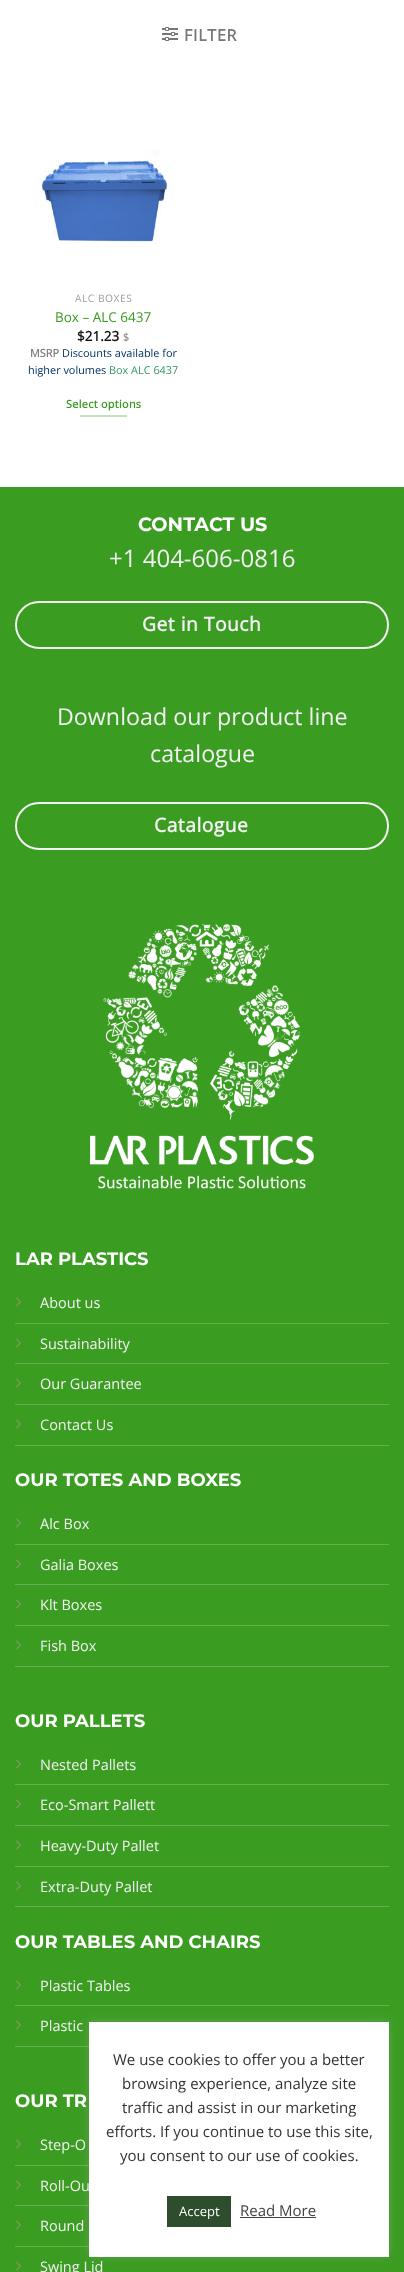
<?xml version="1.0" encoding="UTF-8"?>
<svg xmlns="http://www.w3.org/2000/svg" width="404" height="2272">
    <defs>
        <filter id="blur1" x="-50%" y="-200%" width="200%" height="500%"><feGaussianBlur stdDeviation="5"/></filter>
    </defs>
    <rect width="100%" height="100%" fill="#FFFFFF"/>
    <image x="162" y="27" width="16" height="14" href="img_01.png"/>
    <text x="184" y="41" font-family="Open Sans" font-size="16" font-weight="700" letter-spacing="0.75" fill="#777777">FILTER</text>
    <image x="40" y="149" width="131" height="94" href="img_02.png"/>
    <text x="75" y="302" font-family="Open Sans" font-size="10.25" letter-spacing="0.5" fill="#A0A0A0">ALC BOXES</text>
    <text x="55" y="322" font-family="Open Sans" font-size="13.5" fill="#3B9C22">Box – ALC 6437</text>
    <text x="77" y="341" font-family="Open Sans" font-size="13.5" font-weight="700" fill="#111111">$21.23</text>
    <text x="123" y="341" font-family="Open Sans" font-size="10.9" fill="#777777">$</text>
    <text x="30" y="357" font-family="Open Sans" font-size="10.9" font-weight="700" fill="#808080">MSRP</text>
    <text x="62" y="357" font-family="Open Sans" font-size="10.9" fill="#003366">Discounts available for</text>
    <text x="28" y="374" font-family="Open Sans" font-size="10.9" fill="#003366">higher volumes</text>
    <text x="109" y="374" font-family="Open Sans" font-size="10.9" fill="#339966">Box ALC 6437</text>
    <text x="66" y="408" font-family="Open Sans" font-size="10.9" font-weight="700" letter-spacing="0.3" fill="#3B9C22">Select options</text>
    <rect x="80" y="415" width="47" height="2" fill="#C4E1BD"/>
    <rect x="0" y="487" width="404" height="1785" fill="#3B9C22"/>
    <text x="138" y="531" font-family="Montserrat" font-size="19.25" font-weight="700" fill="#FFFFFF">CONTACT US</text>
    <text x="109" y="567" font-family="Open Sans" font-size="24" fill="#F1F1F1">+1 404-606-0816</text>
    <rect x="16" y="602" width="372" height="46" rx="23" fill="none" stroke="#F1F1F1" stroke-width="2"/>
    <text x="142" y="631" font-family="Open Sans" font-size="19.25" font-weight="700" letter-spacing="0.5" fill="#F1F1F1">Get in Touch</text>
    <text x="57" y="725" font-family="Open Sans" font-size="23.25" fill="#F1F1F1">Download our product line</text>
    <text x="150" y="762" font-family="Open Sans" font-size="23.25" fill="#F1F1F1">catalogue</text>
    <rect x="16" y="803" width="372" height="46" rx="23" fill="none" stroke="#F1F1F1" stroke-width="2"/>
    <text x="154" y="832" font-family="Open Sans" font-size="19.25" font-weight="700" letter-spacing="0.5" fill="#F1F1F1">Catalogue</text>
    <image x="90" y="924" width="224" height="265" href="img_03.png"/>
    <text x="15" y="1265" font-family="Montserrat" font-size="18" font-weight="700" fill="#FFFFFF">LAR PLASTICS</text>
    <rect x="15" y="1323" width="374" height="1" fill="#62B04E"/>
    <image x="16" y="1297" width="5" height="10" href="img_04.png"/>
    <text x="40" y="1308" font-family="Open Sans" font-size="14.5" fill="#F1F1F1">About us</text>
    <rect x="15" y="1363" width="374" height="1" fill="#62B04E"/>
    <image x="16" y="1338" width="5" height="10" href="img_04.png"/>
    <text x="40" y="1349" font-family="Open Sans" font-size="14.5" fill="#F1F1F1">Sustainability</text>
    <rect x="15" y="1404" width="374" height="1" fill="#62B04E"/>
    <image x="16" y="1378" width="5" height="10" href="img_04.png"/>
    <text x="40" y="1389" font-family="Open Sans" font-size="14.5" fill="#F1F1F1">Our Guarantee</text>
    <rect x="15" y="1445" width="374" height="1" fill="#62B04E"/>
    <image x="16" y="1419" width="5" height="10" href="img_04.png"/>
    <text x="40" y="1430" font-family="Open Sans" font-size="14.5" fill="#F1F1F1">Contact Us</text>
    <text x="15" y="1486" font-family="Montserrat" font-size="18" font-weight="700" fill="#FFFFFF">OUR TOTES AND BOXES</text>
    <rect x="15" y="1544" width="374" height="1" fill="#62B04E"/>
    <image x="16" y="1518" width="5" height="10" href="img_04.png"/>
    <text x="40" y="1529" font-family="Open Sans" font-size="14.5" fill="#F1F1F1">Alc Box</text>
    <rect x="15" y="1584" width="374" height="1" fill="#62B04E"/>
    <image x="16" y="1559" width="5" height="10" href="img_04.png"/>
    <text x="40" y="1570" font-family="Open Sans" font-size="14.5" fill="#F1F1F1">Galia Boxes</text>
    <rect x="15" y="1625" width="374" height="1" fill="#62B04E"/>
    <image x="16" y="1599" width="5" height="10" href="img_04.png"/>
    <text x="40" y="1610" font-family="Open Sans" font-size="14.5" fill="#F1F1F1">Klt Boxes</text>
    <rect x="15" y="1666" width="374" height="1" fill="#62B04E"/>
    <image x="16" y="1640" width="5" height="10" href="img_04.png"/>
    <text x="40" y="1651" font-family="Open Sans" font-size="14.5" fill="#F1F1F1">Fish Box</text>
    <text x="15" y="1727" font-family="Montserrat" font-size="18" font-weight="700" fill="#FFFFFF">OUR PALLETS</text>
    <rect x="15" y="1784" width="374" height="1" fill="#62B04E"/>
    <image x="16" y="1759" width="5" height="10" href="img_04.png"/>
    <text x="40" y="1770" font-family="Open Sans" font-size="14.5" fill="#F1F1F1">Nested Pallets</text>
    <rect x="15" y="1825" width="374" height="1" fill="#62B04E"/>
    <image x="16" y="1799" width="5" height="10" href="img_04.png"/>
    <text x="40" y="1810" font-family="Open Sans" font-size="14.5" fill="#F1F1F1">Eco-Smart Pallett</text>
    <rect x="15" y="1866" width="374" height="1" fill="#62B04E"/>
    <image x="16" y="1840" width="5" height="10" href="img_04.png"/>
    <text x="40" y="1851" font-family="Open Sans" font-size="14.5" fill="#F1F1F1">Heavy-Duty Pallet</text>
    <rect x="15" y="1906" width="374" height="1" fill="#62B04E"/>
    <image x="16" y="1881" width="5" height="10" href="img_04.png"/>
    <text x="40" y="1892" font-family="Open Sans" font-size="14.5" fill="#F1F1F1">Extra-Duty Pallet</text>
    <text x="15" y="1948" font-family="Montserrat" font-size="18" font-weight="700" fill="#FFFFFF">OUR TABLES AND CHAIRS</text>
    <rect x="15" y="2005" width="374" height="1" fill="#62B04E"/>
    <image x="16" y="1980" width="5" height="10" href="img_04.png"/>
    <text x="40" y="1991" font-family="Open Sans" font-size="14.5" fill="#F1F1F1">Plastic Tables</text>
    <rect x="15" y="2046" width="74" height="1" fill="#62B04E"/>
    <image x="16" y="2020" width="5" height="10" href="img_04.png"/>
    <text x="40" y="2031" font-family="Open Sans" font-size="14.5" fill="#F1F1F1">Plastic</text>
    <text x="15" y="2107" font-family="Montserrat" font-size="18" font-weight="700" fill="#FFFFFF">OUR TR</text>
    <rect x="15" y="2165" width="74" height="1" fill="#62B04E"/>
    <image x="16" y="2139" width="5" height="10" href="img_04.png"/>
    <text x="40" y="2150" font-family="Open Sans" font-size="14.5" fill="#F1F1F1">Step-O</text>
    <rect x="15" y="2205" width="74" height="1" fill="#62B04E"/>
    <image x="16" y="2180" width="5" height="10" href="img_04.png"/>
    <text x="40" y="2191" font-family="Open Sans" font-size="14.5" fill="#F1F1F1">Roll-Ou</text>
    <rect x="15" y="2246" width="74" height="1" fill="#62B04E"/>
    <image x="16" y="2220" width="5" height="10" href="img_04.png"/>
    <text x="40" y="2231" font-family="Open Sans" font-size="14.5" fill="#F1F1F1">Round</text>
    <image x="16" y="2261" width="5" height="10" href="img_04.png"/>
    <text x="40" y="2272" font-family="Open Sans" font-size="14.5" fill="#F1F1F1">Swing Lid</text>
    <rect x="89" y="2021" width="300" height="235" fill="#ACABAB" fill-opacity="0.3" filter="url(#blur1)"/>
    <rect x="89" y="2022" width="300" height="235" fill="#FFFFFF"/>
    <text x="113" y="2065" font-family="Open Sans" font-size="15" fill="#333333">We use cookies to offer you a better</text>
    <text font-family="Open Sans" font-size="15" fill="#333333">
        <tspan x="122" y="2089">browsing experience, analyze site</tspan>
        <tspan x="122" y="2113">traffic and assist in our marketing</tspan>
    </text>
    <text x="106" y="2137" font-family="Open Sans" font-size="15" fill="#333333">efforts. If you continue to use this site,</text>
    <text x="120" y="2161" font-family="Open Sans" font-size="15" fill="#333333">you consent to our use of cookies.</text>
    <rect x="167" y="2196" width="64" height="31" fill="#2D4D2C"/>
    <text x="179" y="2216" font-family="Open Sans" font-size="13" fill="#FFFFFF">Accept</text>
    <text x="240" y="2216" font-family="Open Sans" font-size="15" fill="#444444">Read More</text>
    <rect x="240" y="2217" width="76" height="1" fill="#444444"/>
</svg>
